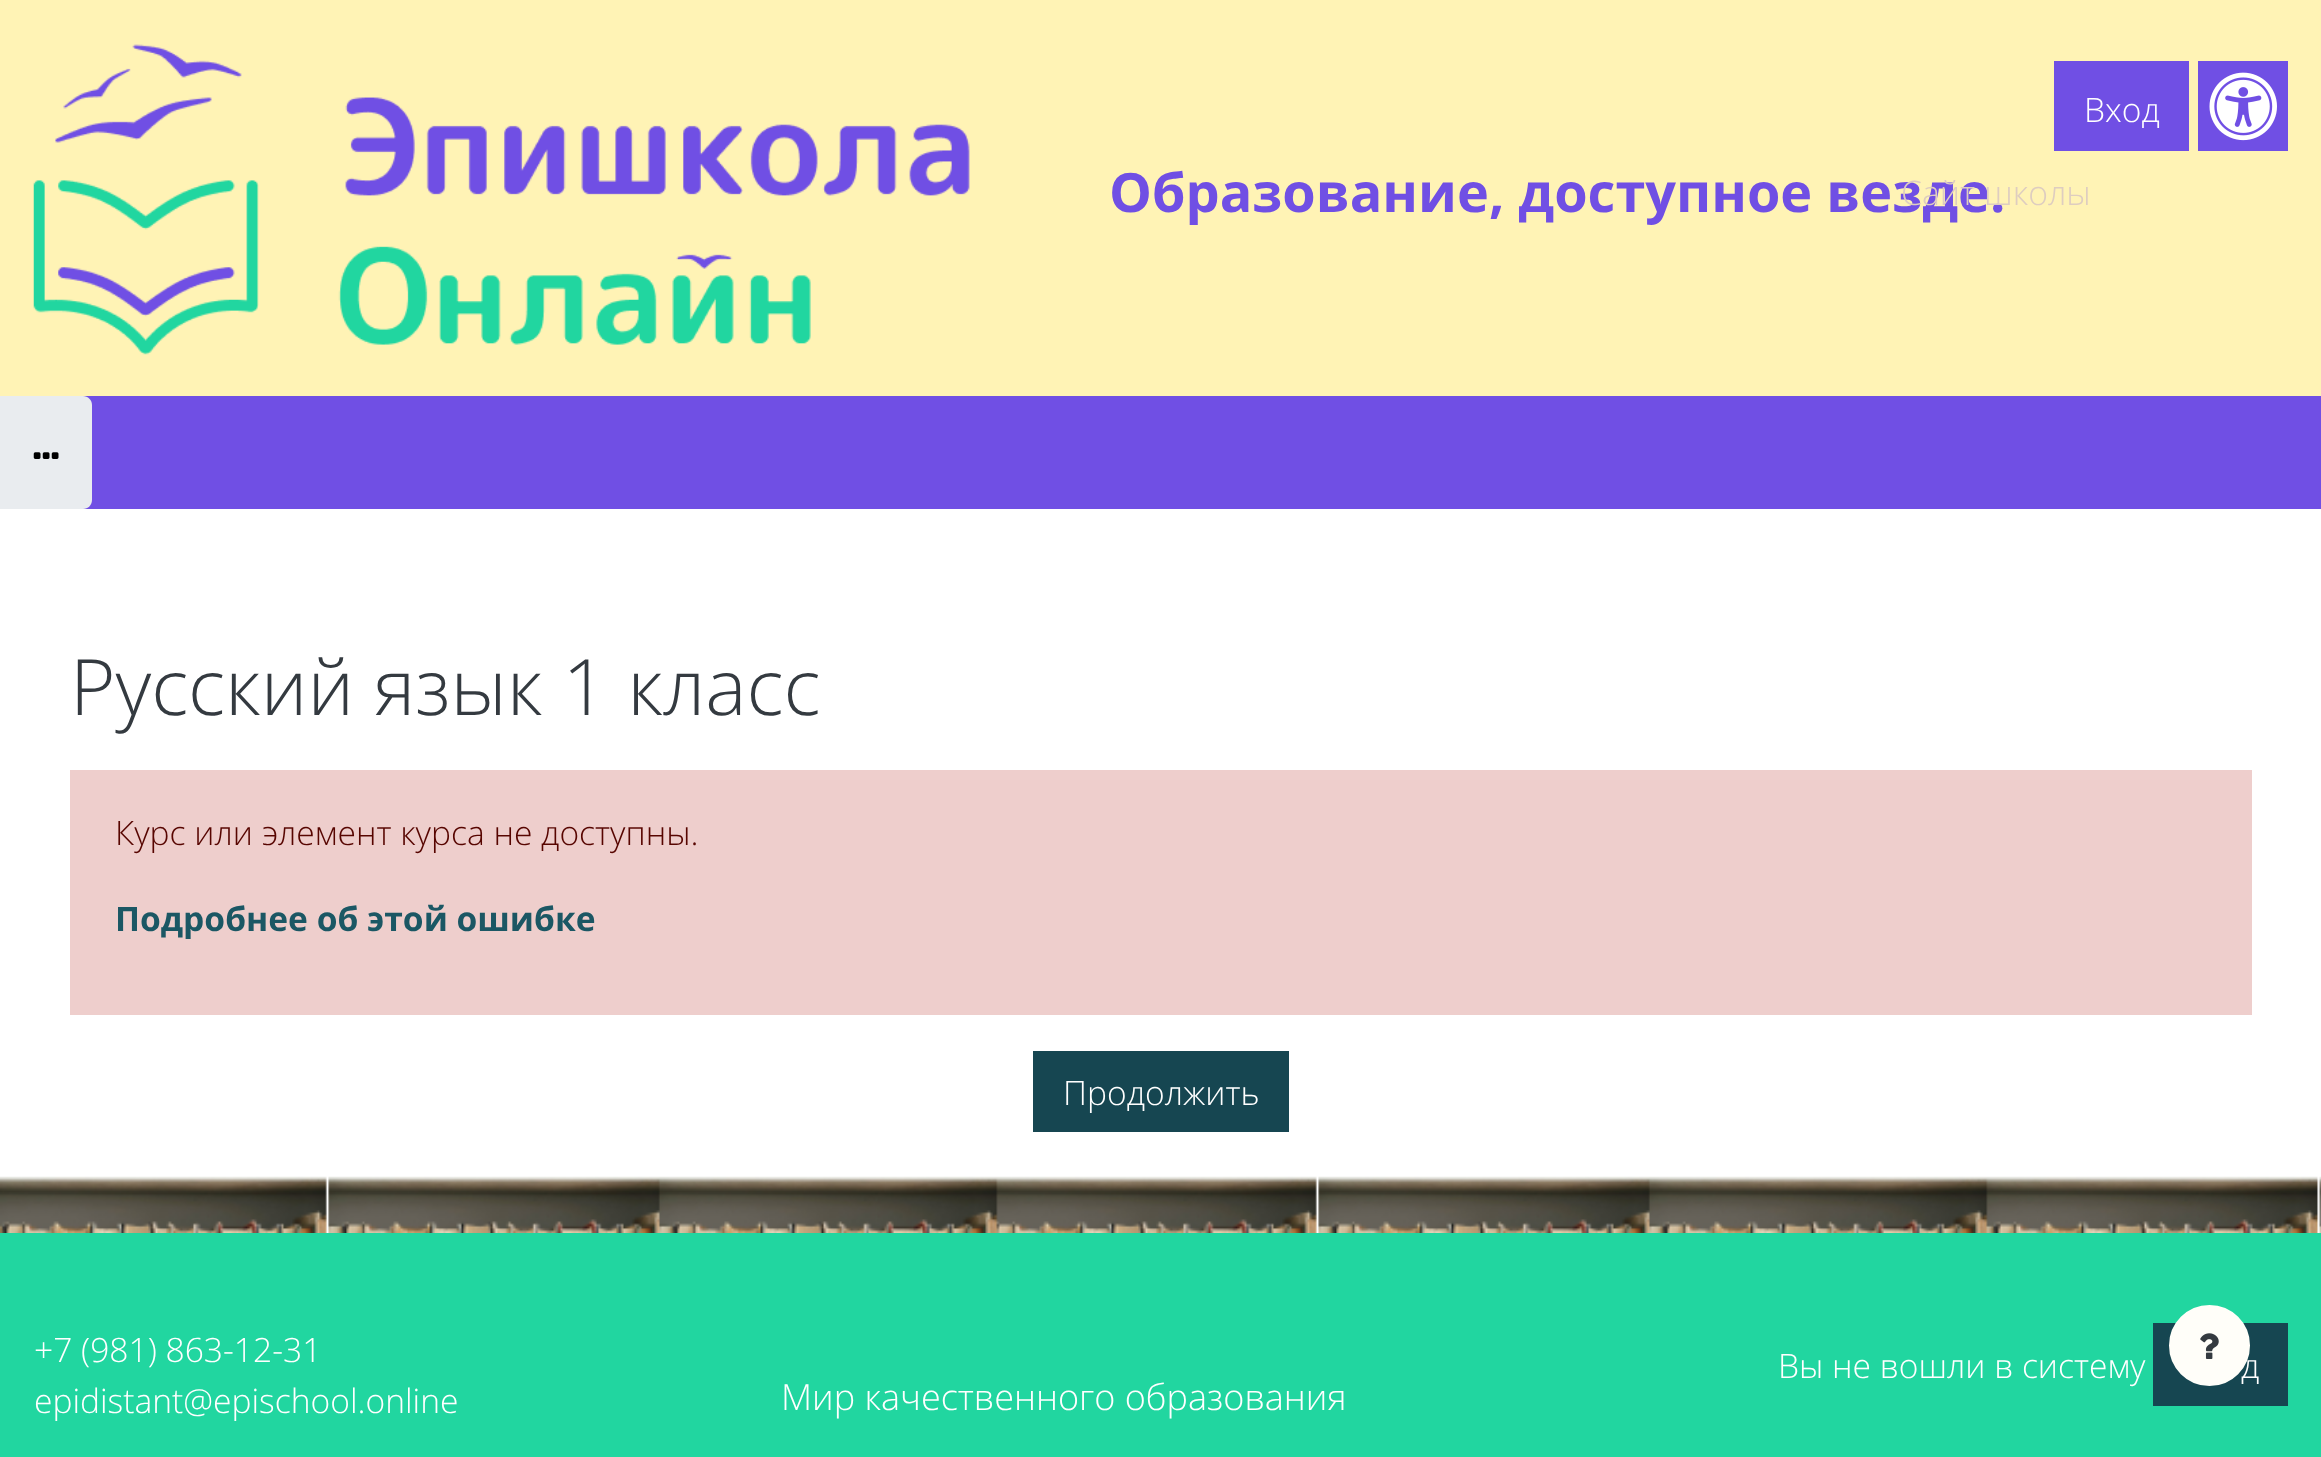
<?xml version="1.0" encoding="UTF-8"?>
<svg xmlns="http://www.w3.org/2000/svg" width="2321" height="1457">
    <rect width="100%" height="100%" fill="#FFFFFF"/>
    <rect x="0" y="0" width="2321" height="396" fill="#FFF3B5"/>
    <image x="33" y="44" width="937" height="311" href="img_01.png"/>
    <text x="1109" y="212" font-family="Open Sans" font-size="54" font-weight="700" fill="#704FE4">Образование, доступное везде.</text>
    <rect x="2054" y="61" width="135" height="90" fill="#704FE4"/>
    <text x="2084" y="122" font-family="Open Sans" font-size="33.6" font-weight="300" fill="#FFFFFF">Вход</text>
    <rect x="2198" y="61" width="90" height="90" fill="#704FE4"/>
    <image x="2209" y="72" width="68" height="69" href="img_02.png"/>
    <text x="1901" y="205" font-family="Open Sans" font-size="33.75" font-weight="300" fill="#DECDC0">Сайт школы</text>
    <rect x="83" y="396" width="2238" height="113" fill="#704FE4"/>
    <path d="M 0 396 H 83 C 88 396 92 400 92 405 V 500 C 92 505 88 509 83 509 H 0 Z" fill="#E9ECEF"/>
    <image x="33" y="452" width="26" height="7" href="img_03.png"/>
    <text x="70" y="715" font-family="Open Sans" font-size="77.75" font-weight="300" fill="#343A40">Русский язык 1 класс</text>
    <rect x="70" y="770" width="2182" height="245" fill="#EECECC"/>
    <text x="115" y="845" font-family="Open Sans" font-size="33.6" font-weight="300" fill="#570500">Курс или элемент курса не доступны.</text>
    <text x="115" y="931" font-family="Open Sans" font-size="33.6" font-weight="700" fill="#1B5764">Подробнее об этой ошибке</text>
    <rect x="1033" y="1051" width="256" height="81" fill="#164651"/>
    <text x="1063" y="1105" font-family="Open Sans" font-size="33.6" font-weight="300" fill="#FFFFFF">Продолжить</text>
    <image x="0" y="1176" width="2321" height="57" href="img_04.png"/>
    <rect x="0" y="1233" width="2321" height="224" fill="#21D6A0"/>
    <rect x="2153" y="1323" width="135" height="83" fill="#164651"/>
    <text x="2241" y="1378" font-family="Open Sans" font-size="33.6" font-weight="300" fill="#FFFFFF">д</text>
    <circle cx="2209.5" cy="1345.5" r="39.5" fill="#FFFEF9" stroke="#FFFEF9" stroke-width="2"/>
    <image x="2200" y="1333" width="19" height="26" href="img_05.png"/>
    <text font-family="Open Sans" font-size="33.6" font-weight="300" fill="#FFFFFF">
        <tspan x="34" y="1362">+7 (981) 863-12-31</tspan>
        <tspan x="34" y="1413">epidistant@epischool.online</tspan>
    </text>
    <text x="1778" y="1378" font-family="Open Sans" font-size="33.6" font-weight="300" fill="#FFFFFF">Вы не вошли в систему</text>
    <text x="781" y="1410" font-family="Open Sans" font-size="36" font-weight="300" fill="#FFFFFF">Мир качественного образования</text>
</svg>
